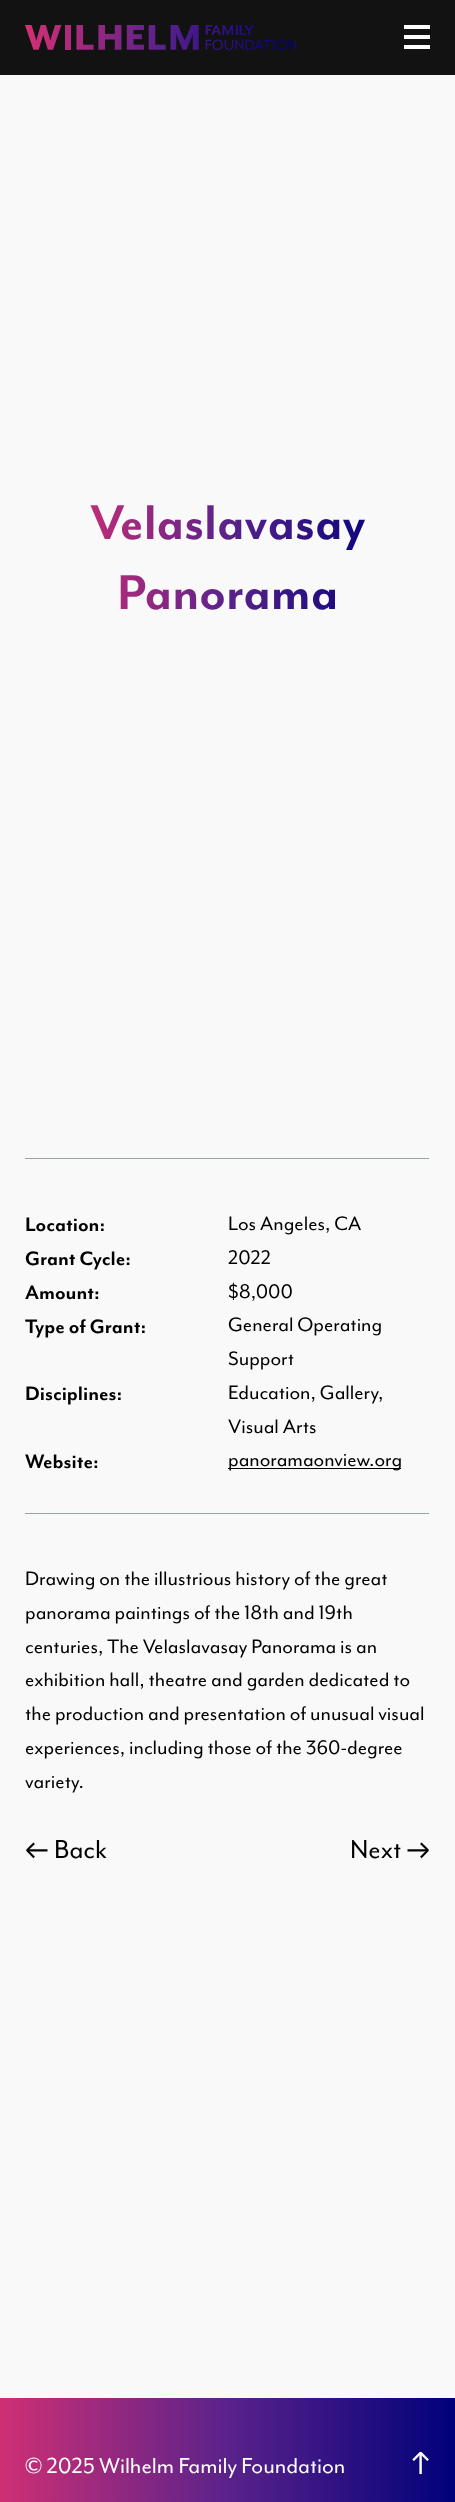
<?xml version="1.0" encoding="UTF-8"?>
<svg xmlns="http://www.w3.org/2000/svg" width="455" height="2502">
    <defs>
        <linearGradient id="g1" gradientUnits="userSpaceOnUse" x1="65" y1="558" x2="390" y2="558"><stop offset="0" stop-color="#CF2F74"/><stop offset="0.5" stop-color="#5A228B"/><stop offset="1" stop-color="#01017A"/></linearGradient>
        <linearGradient id="g2" gradientUnits="userSpaceOnUse" x1="0" y1="2466" x2="455" y2="2466"><stop offset="0" stop-color="#CF2F74"/><stop offset="0.5" stop-color="#5A228B"/><stop offset="1" stop-color="#01017A"/></linearGradient>
    </defs>
    <rect width="100%" height="100%" fill="#F9F9F9"/>
    <rect x="0" y="0" width="455" height="75" fill="#121212"/>
    <image x="25" y="25" width="271" height="25" href="img_01.png"/>
    <rect x="404" y="25" width="26" height="4" fill="#FFFFFF"/>
    <rect x="404" y="35" width="26" height="4" fill="#FFFFFF"/>
    <rect x="404" y="45" width="26" height="4" fill="#FFFFFF"/>
    <text x="90" y="539" font-family="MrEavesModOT" font-size="56.25" font-weight="700" fill="url(#g1)">Velaslavasay</text>
    <text x="117" y="609" font-family="MrEavesModOT" font-size="56.25" font-weight="700" fill="url(#g1)">Panorama</text>
    <rect x="25" y="1158" width="405" height="1" fill="#95A5A6"/>
    <rect x="429" y="1158" width="1" height="1" fill="#EEEEEE"/>
    <rect x="25" y="1158" width="1" height="1" fill="#9F9F9F"/>
    <text x="25" y="1231" font-family="MrEavesModOT" font-size="22.5" font-weight="700" fill="#000000">Location:</text>
    <text x="228" y="1230" font-family="MrEavesModOT" font-size="22.5" fill="#000000">Los Angeles, CA</text>
    <text x="25" y="1265" font-family="MrEavesModOT" font-size="22.5" font-weight="700" fill="#000000">Grant Cycle:</text>
    <text x="228" y="1264" font-family="MrEavesModOT" font-size="22.5" fill="#000000">2022</text>
    <text x="25" y="1299" font-family="MrEavesModOT" font-size="22.5" font-weight="700" fill="#000000">Amount:</text>
    <text x="228" y="1298" font-family="MrEavesModOT" font-size="22.5" fill="#000000">$8,000</text>
    <text x="25" y="1333" font-family="MrEavesModOT" font-size="22.5" font-weight="700" fill="#000000">Type of Grant:</text>
    <text font-family="MrEavesModOT" font-size="22.5" fill="#000000">
        <tspan x="228" y="1331">General Operating</tspan>
        <tspan x="228" y="1365">Support</tspan>
    </text>
    <text x="25" y="1400" font-family="MrEavesModOT" font-size="22.5" font-weight="700" fill="#000000">Disciplines:</text>
    <text font-family="MrEavesModOT" font-size="22.5" fill="#000000">
        <tspan x="228" y="1399">Education, Gallery,</tspan>
        <tspan x="228" y="1433">Visual Arts</tspan>
    </text>
    <text x="25" y="1468" font-family="MrEavesModOT" font-size="22.5" font-weight="700" fill="#000000">Website:</text>
    <rect x="228" y="1468" width="173" height="1" fill="#000000"/>
    <text x="228" y="1466" font-family="MrEavesModOT" font-size="22.5" fill="#000000">panoramaonview.org</text>
    <rect x="25" y="1513" width="405" height="1" fill="#95A5A6"/>
    <rect x="429" y="1513" width="1" height="1" fill="#EEEEEE"/>
    <rect x="25" y="1513" width="1" height="1" fill="#9F9F9F"/>
    <text font-family="MrEavesModOT" font-size="22.5" fill="#000000">
        <tspan x="25" y="1585">Drawing on the illustrious history of the great</tspan>
        <tspan x="25" y="1619">panorama paintings of the 18th and 19th</tspan>
        <tspan x="25" y="1653">centuries, The Velaslavasay Panorama is an</tspan>
        <tspan x="25" y="1686">exhibition hall, theatre and garden dedicated to</tspan>
        <tspan x="25" y="1720">the production and presentation of unusual visual</tspan>
        <tspan x="25" y="1754">experiences, including those of the 360-degree</tspan>
        <tspan x="25" y="1788">variety.</tspan>
    </text>
    <text x="25" y="1858" font-family="Space Grotesk" font-size="30" fill="#000000">←</text>
    <text x="54" y="1858" font-family="MrEavesModOT" font-size="30" fill="#000000">Back</text>
    <text x="350" y="1858" font-family="MrEavesModOT" font-size="30" fill="#000000">Next</text>
    <text x="406" y="1858" font-family="Space Grotesk" font-size="30" fill="#000000">→</text>
    <rect x="0" y="2398" width="455" height="104" fill="url(#g2)"/>
    <text x="25" y="2473" font-family="MrEavesModOT" font-size="25" fill="#FFFFFF">© 2025 Wilhelm Family Foundation</text>
    <text x="411" y="2474" font-family="Space Grotesk" font-size="31" fill="#FFFFFF">↑</text>
</svg>
